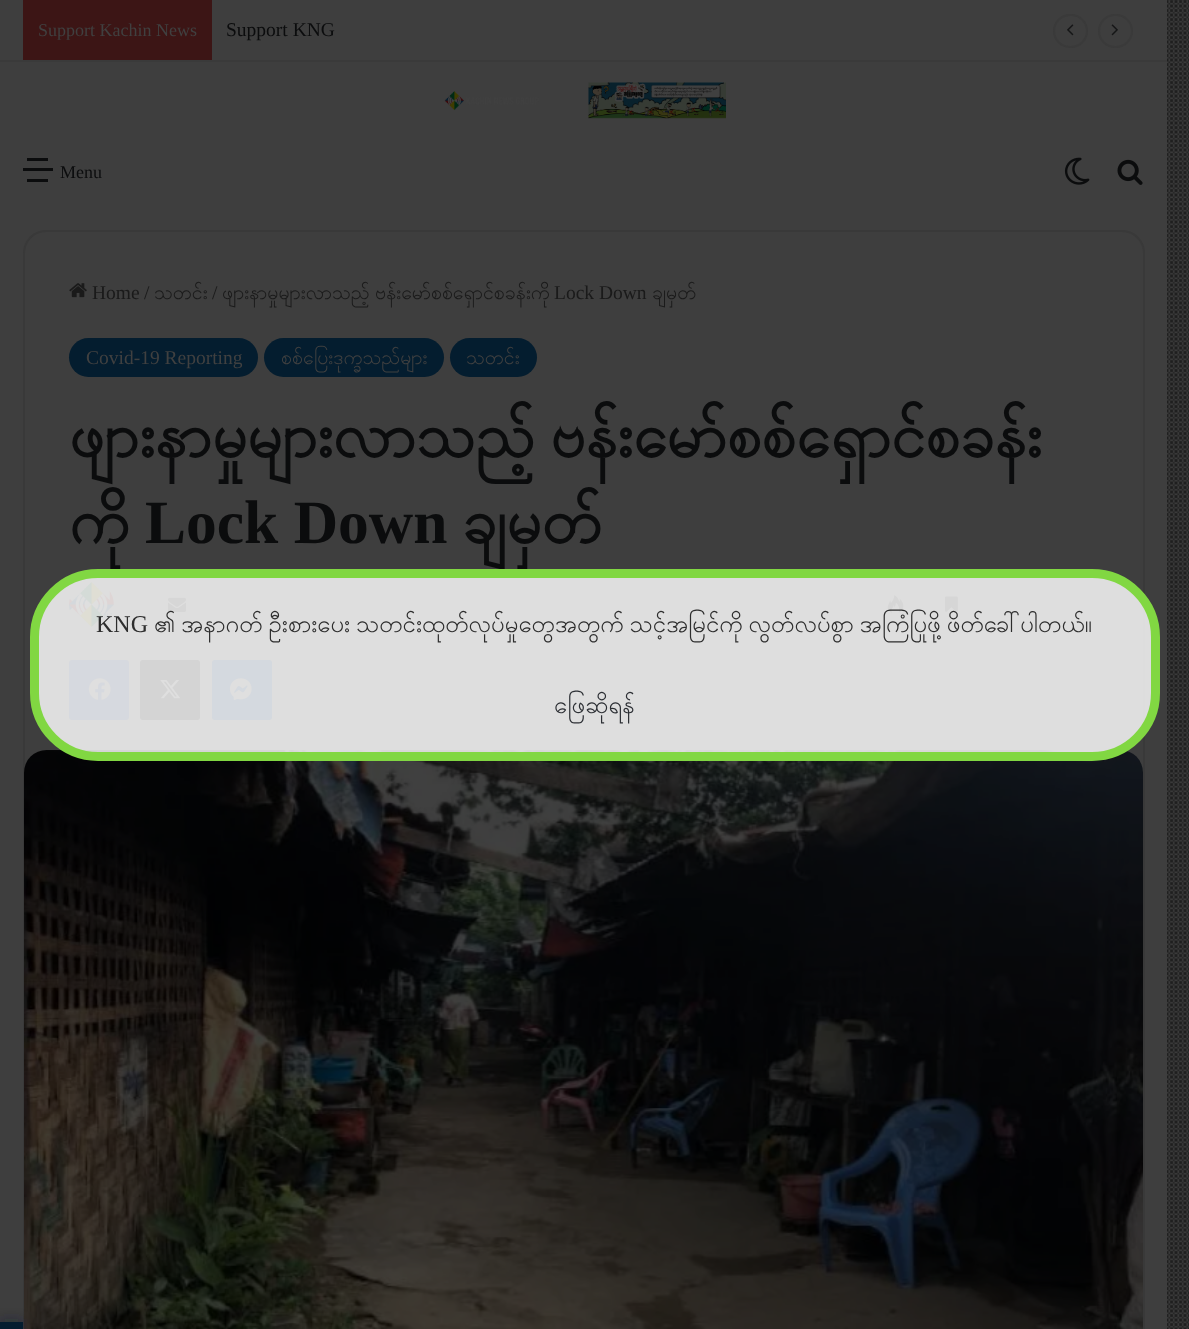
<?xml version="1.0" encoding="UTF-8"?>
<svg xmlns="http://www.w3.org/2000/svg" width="1189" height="1329">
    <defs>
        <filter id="blur1" x="-50%" y="-200%" width="200%" height="500%"><feGaussianBlur stdDeviation="7.5"/></filter>
    </defs>
    <rect width="100%" height="100%" fill="#3E3E3E"/>
    <image x="1167" y="0" width="22" height="1329" href="img_01.png"/>
    <rect x="0" y="60" width="1167" height="2" fill="#3A3A3A"/>
    <rect x="23" y="0" width="189" height="60" fill="#3C1515"/>
    <text x="38" y="36" font-family="Liberation Serif" font-size="18" fill="#404040">Support Kachin News</text>
    <text x="226" y="36" font-family="Liberation Serif" font-size="19.5" fill="#0B0C0D">Support KNG</text>
    <rect x="1054" y="15" width="33" height="32" rx="16" fill="none" stroke="#3A3A3A" stroke-width="2"/>
    <image x="1067" y="24" width="7" height="12" href="img_02.png"/>
    <rect x="1099" y="15" width="33" height="32" rx="16" fill="none" stroke="#3A3A3A" stroke-width="2"/>
    <image x="1111" y="24" width="7" height="12" href="img_03.png"/>
    <image x="444" y="82" width="282" height="37" href="img_04.png"/>
    <rect x="23" y="168" width="30" height="3" fill="#0B0C0D"/>
    <rect x="27" y="158" width="21" height="3" fill="#0B0C0D"/>
    <rect x="27" y="179" width="21" height="3" fill="#0B0C0D"/>
    <text x="60" y="178" font-family="Liberation Serif" font-size="18" fill="#0B0C0D">Menu</text>
    <image x="1064" y="157" width="26" height="28" href="img_05.png"/>
    <image x="1117" y="159" width="26" height="26" href="img_06.png"/>
    <rect x="24" y="231" width="1120" height="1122" rx="22" fill="none" stroke="#393939" stroke-width="2"/>
    <image x="69" y="283" width="18" height="15" href="img_07.png"/>
    <text x="92" y="299" font-family="Liberation Serif" font-size="19.5" fill="#1A1A1A">Home</text>
    <text x="144" y="299" font-family="Liberation Serif" font-size="19.5" fill="#1A1A1A">/</text>
    <text x="154" y="299" font-family="Padauk" font-size="19.5" fill="#1A1A1A">သတင်း</text>
    <text x="212" y="299" font-family="Liberation Serif" font-size="19.5" fill="#1A1A1A">/</text>
    <text x="222" y="299" font-family="Padauk" font-size="19.5" fill="#1A1A1A">ဖျားနာမှုများလာသည့်</text>
    <text x="375" y="299" font-family="Padauk" font-size="19.5" fill="#1A1A1A">ဗန်းမော်စစ်ရှောင်စခန်းကို</text>
    <text x="554" y="299" font-family="Liberation Serif" font-size="19.5" fill="#1A1A1A">Lock Down</text>
    <text x="652" y="299" font-family="Padauk" font-size="19.5" fill="#1A1A1A">ချမှတ်</text>
    <rect x="69" y="338" width="189" height="39" rx="19.5" fill="#041D2F"/>
    <text x="86" y="364" font-family="Liberation Serif" font-size="19.5" fill="#404040">Covid-19 Reporting</text>
    <rect x="264" y="338" width="180" height="39" rx="19.5" fill="#041D2F"/>
    <text x="281" y="364" font-family="Padauk" font-size="19.5" fill="#404040">စစ်ပြေးဒုက္ခသည်များ</text>
    <rect x="450" y="338" width="87" height="39" rx="19.5" fill="#041D2F"/>
    <text x="466" y="364" font-family="Padauk" font-size="19.5" fill="#404040">သတင်း</text>
    <text font-family="Padauk" font-size="61.5" font-weight="700" fill="#0B0C0D">
        <tspan x="69" y="457" word-spacing="-7">ဖျားနာမှုများလာသည့် ဗန်းမော်စစ်ရှောင်စခန်း</tspan>
        <tspan x="69" y="543">ကို</tspan>
    </text>
    <text x="145" y="543" font-family="Liberation Serif" font-size="61.5" font-weight="700" fill="#0B0C0D">Lock Down</text>
    <text x="462" y="543" font-family="Padauk" font-size="61.5" font-weight="700" fill="#0B0C0D">ချမှတ်</text>
    <image x="69" y="582" width="45" height="45" href="img_08.png"/>
    <image x="168" y="597" width="18" height="15" href="img_09.png"/>
    <image x="887" y="595" width="17" height="18" href="img_10.png"/>
    <image x="945" y="596" width="13" height="16" href="img_11.png"/>
    <rect x="69" y="660" width="60" height="60" rx="3" fill="#102040"/>
    <image x="88" y="678" width="23" height="22" href="img_12.png"/>
    <rect x="140" y="660" width="60" height="60" rx="3" fill="#000000"/>
    <image x="160" y="680" width="21" height="19" href="img_13.png"/>
    <rect x="212" y="660" width="60" height="60" rx="3" fill="#001E40"/>
    <image x="229" y="678" width="23" height="22" href="img_14.png"/>
    <image x="24" y="750" width="1119" height="579" href="img_15.png"/>
    <rect x="34.5" y="573.5" width="1121" height="183" rx="63.5" fill="#FFFFFF" fill-opacity="0.83" stroke="#81D742" stroke-width="9"/>
    <text x="96" y="632" font-family="Liberation Serif" font-size="24" fill="#2D2D2D">KNG</text>
    <text x="154" y="632" word-spacing="-3" font-family="Padauk" font-size="24" fill="#2D2D2D">၏ အနာဂတ် ဦးစားပေး သတင်းထုတ်လုပ်မှုတွေအတွက် သင့်အမြင်ကို လွတ်လပ်စွာ အကြံပြုဖို့ ဖိတ်ခေါ်ပါတယ်။</text>
    <text x="554" y="713" font-family="Padauk" font-size="24" fill="#2C2F34">ဖြေဆိုရန်</text>
    <rect x="0" y="1322" width="23" height="7" fill="#041D2F" fill-opacity="0.7" filter="url(#blur1)"/>
    <rect x="0" y="1322" width="23" height="7" fill="#041D2F"/>
</svg>
